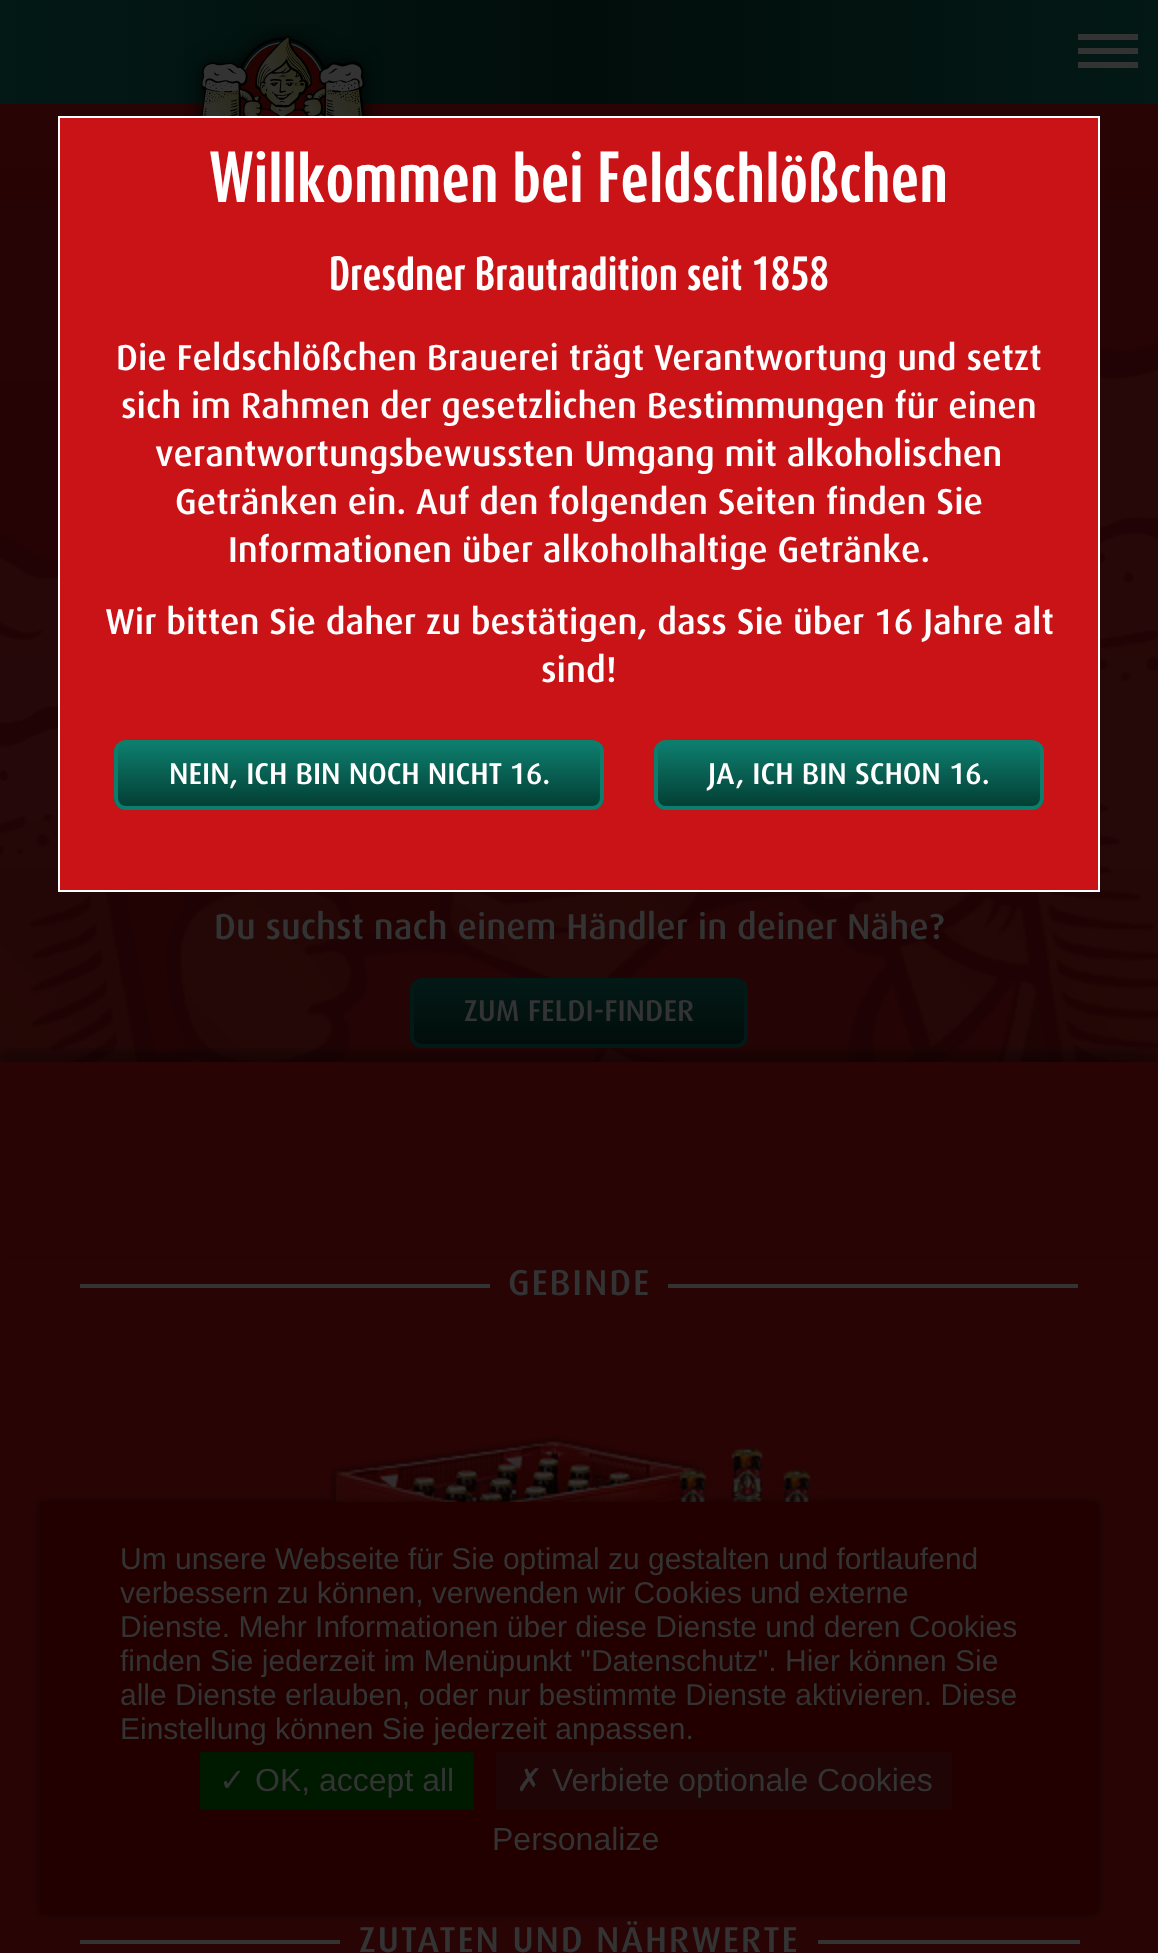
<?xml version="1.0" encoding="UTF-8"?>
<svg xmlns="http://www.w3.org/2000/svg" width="1158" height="1953">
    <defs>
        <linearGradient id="g1" gradientUnits="userSpaceOnUse" x1="0" y1="52" x2="1158" y2="52"><stop offset="0" stop-color="#031916"/><stop offset="0.5" stop-color="#010D0A"/><stop offset="1" stop-color="#031916"/></linearGradient>
        <clipPath id="clip1"><rect x="114" y="740" width="490" height="70" rx="12"/></clipPath>
        <linearGradient id="g2" gradientUnits="userSpaceOnUse" x1="359" y1="744" x2="359" y2="806"><stop offset="0" stop-color="#0D7D6D"/><stop offset="1" stop-color="#033F34"/></linearGradient>
        <clipPath id="clip2"><rect x="654" y="740" width="390" height="70" rx="12"/></clipPath>
        <linearGradient id="g3" gradientUnits="userSpaceOnUse" x1="849" y1="744" x2="849" y2="806"><stop offset="0" stop-color="#0D7D6D"/><stop offset="1" stop-color="#033F34"/></linearGradient>
        <filter id="blur1" x="-50%" y="-200%" width="200%" height="500%"><feGaussianBlur stdDeviation="5"/></filter>
        <clipPath id="clip3"><rect x="410" y="978" width="338" height="70" rx="12"/></clipPath>
        <linearGradient id="g4" gradientUnits="userSpaceOnUse" x1="579" y1="982" x2="579" y2="1044"><stop offset="0" stop-color="#031916"/><stop offset="1" stop-color="#010D0A"/></linearGradient>
    </defs>
    <rect width="100%" height="100%" fill="#280405"/>
    <rect x="0" y="0" width="1158" height="104" fill="url(#g1)"/>
    <image x="183" y="23" width="200" height="93" href="img_01.png"/>
    <rect x="1078" y="34" width="60" height="6" fill="#333333"/>
    <rect x="1078" y="48" width="60" height="6" fill="#333333"/>
    <rect x="1078" y="62" width="60" height="6" fill="#333333"/>
    <image x="0" y="168" width="1158" height="894" href="img_02.png"/>
    <rect x="59" y="117" width="1040" height="774" fill="#CA1317" stroke="#FFFFFF" stroke-width="2"/>
    <text x="209" y="202" font-family="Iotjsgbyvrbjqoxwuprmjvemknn" font-size="60" font-weight="700" fill="#FFFFFF">Willkommen bei Feldschlößchen</text>
    <text x="329" y="290" font-family="Iotjsgbyvrbjqoxwuprmjvemknn" font-size="40" font-weight="700" fill="#FFFFFF">Dresdner Brautradition seit 1858</text>
    <text x="116" y="370" font-family="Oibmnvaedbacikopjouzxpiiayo" font-size="36" font-weight="500" fill="#FFFFFF">Die Feldschlößchen Brauerei trägt Verantwortung und setzt</text>
    <text x="121" y="418" font-family="Oibmnvaedbacikopjouzxpiiayo" font-size="36" font-weight="500" fill="#FFFFFF">sich im Rahmen der gesetzlichen Bestimmungen für einen</text>
    <text x="155" y="466" font-family="Oibmnvaedbacikopjouzxpiiayo" font-size="36" font-weight="500" fill="#FFFFFF">verantwortungsbewussten Umgang mit alkoholischen</text>
    <text x="175" y="514" font-family="Oibmnvaedbacikopjouzxpiiayo" font-size="36" font-weight="500" fill="#FFFFFF">Getränken ein. Auf den folgenden Seiten finden Sie</text>
    <text x="228" y="562" font-family="Oibmnvaedbacikopjouzxpiiayo" font-size="36" font-weight="500" fill="#FFFFFF">Informationen über alkoholhaltige Getränke.</text>
    <text x="105" y="634" font-family="Oibmnvaedbacikopjouzxpiiayo" font-size="36" font-weight="500" fill="#FFFFFF">Wir bitten Sie daher zu bestätigen, dass Sie über 16 Jahre alt</text>
    <text x="541" y="682" font-family="Oibmnvaedbacikopjouzxpiiayo" font-size="36" font-weight="500" fill="#FFFFFF">sind!</text>
    <g clip-path="url(#clip1)">
        <rect x="114" y="744" width="490" height="62" fill="url(#g2)"/>
    </g>
    <rect x="116" y="742" width="486" height="66" rx="10" fill="none" stroke="#0D7D6D" stroke-width="4"/>
    <text x="169" y="784" font-family="Oibmnvaedbacikopjouzxpiiayo" font-size="30" font-weight="500" fill="#FFFFFF">NEIN, ICH BIN NOCH NICHT 16.</text>
    <g clip-path="url(#clip2)">
        <rect x="654" y="744" width="390" height="62" fill="url(#g3)"/>
    </g>
    <rect x="656" y="742" width="386" height="66" rx="10" fill="none" stroke="#0D7D6D" stroke-width="4"/>
    <text x="708" y="784" font-family="Oibmnvaedbacikopjouzxpiiayo" font-size="30" font-weight="500" fill="#FFFFFF">JA, ICH BIN SCHON 16.</text>
    <text x="214" y="939" font-family="Oibmnvaedbacikopjouzxpiiayo" font-size="36" font-weight="500" fill="#333333">Du suchst nach einem Händler in deiner Nähe?</text>
    <rect x="0" y="1052" width="1158" height="200" fill="#000000" fill-opacity="0.35" filter="url(#blur1)"/>
    <g clip-path="url(#clip3)">
        <rect x="410" y="982" width="338" height="62" fill="url(#g4)"/>
    </g>
    <rect x="412" y="980" width="334" height="66" rx="10" fill="none" stroke="#031916" stroke-width="4"/>
    <text x="464" y="1021" font-family="Oibmnvaedbacikopjouzxpiiayo" font-size="30" font-weight="500" fill="#333333">ZUM FELDI-FINDER</text>
    <rect x="0" y="1062" width="1158" height="194" fill="#280405"/>
    <rect x="80" y="1284" width="410" height="4" fill="#333333"/>
    <text x="508" y="1295" font-family="Oibmnvaedbacikopjouzxpiiayo" font-size="36" font-weight="500" letter-spacing="1.8" fill="#333333">GEBINDE</text>
    <rect x="668" y="1284" width="410" height="4" fill="#333333"/>
    <image x="326" y="1434" width="514" height="68" href="img_03.png"/>
    <rect x="80" y="1940" width="260" height="4" fill="#333333"/>
    <text x="359" y="1952" font-family="Oibmnvaedbacikopjouzxpiiayo" font-size="36" font-weight="500" letter-spacing="1.8" fill="#333333">ZUTATEN UND NÄHRWERTE</text>
    <rect x="818" y="1940" width="262" height="4" fill="#333333"/>
    <rect x="40" y="1502" width="1058" height="412" fill="#000000" fill-opacity="0.5" filter="url(#blur1)"/>
    <rect x="40" y="1502" width="1058" height="412" fill="#220000"/>
    <text font-family="Liberation Sans" font-size="30" fill="#333333">
        <tspan x="120" y="1569">Um unsere Webseite für Sie optimal zu gestalten und fortlaufend</tspan>
        <tspan x="120" y="1603">verbessern zu können, verwenden wir Cookies und externe</tspan>
        <tspan x="120" y="1637">Dienste. Mehr Informationen über diese Dienste und deren Cookies</tspan>
        <tspan x="120" y="1671">finden Sie jederzeit im Menüpunkt "Datenschutz". Hier können Sie</tspan>
        <tspan x="120" y="1705">alle Dienste erlauben, oder nur bestimmte Dienste aktivieren. Diese</tspan>
        <tspan x="120" y="1739">Einstellung können Sie jederzeit anpassen.</tspan>
    </text>
    <rect x="200" y="1752" width="274" height="58" fill="#001A00"/>
    <text x="219" y="1791" font-family="DejaVu Sans" font-size="32" fill="#333333">✓</text>
    <text x="255" y="1791" font-family="Liberation Sans" font-size="32" fill="#333333">OK, accept all</text>
    <rect x="496" y="1752" width="456" height="58" fill="#1F0505"/>
    <text x="516" y="1791" font-family="DejaVu Sans" font-size="32" fill="#333333">✗</text>
    <text x="552" y="1791" font-family="Liberation Sans" font-size="32" fill="#333333">Verbiete optionale Cookies</text>
    <text x="492" y="1850" font-family="Liberation Sans" font-size="32" fill="#333333">Personalize</text>
</svg>
